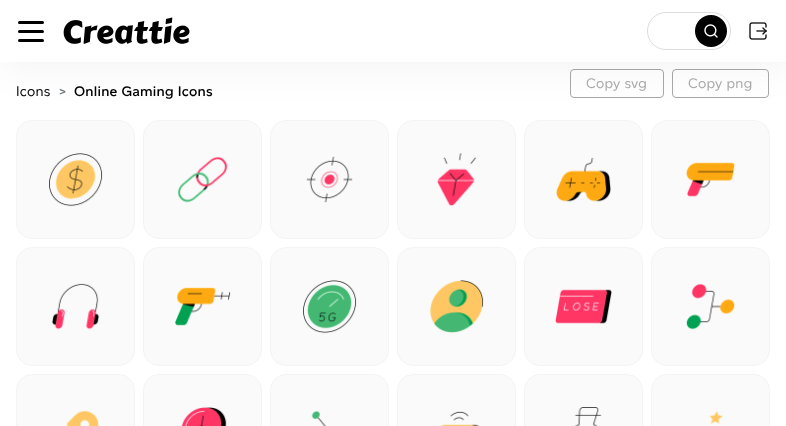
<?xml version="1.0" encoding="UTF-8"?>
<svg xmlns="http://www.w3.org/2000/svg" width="786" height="426">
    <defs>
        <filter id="blur1" x="-50%" y="-200%" width="200%" height="500%"><feGaussianBlur stdDeviation="20"/></filter>
    </defs>
    <rect width="100%" height="100%" fill="#FFFFFF"/>
    <rect x="570.5" y="69.5" width="93" height="28" rx="3.5" fill="none" stroke="#A8A8A8"/>
    <rect x="672.5" y="69.5" width="96" height="28" rx="3.5" fill="none" stroke="#A8A8A8"/>
    <rect x="16.5" y="120.5" width="118" height="118" rx="15.5" fill="#FAFAFA" stroke="#F4F4F4"/>
    <rect x="143.5" y="120.5" width="118" height="118" rx="15.5" fill="#FAFAFA" stroke="#F4F4F4"/>
    <rect x="270.5" y="120.5" width="118" height="118" rx="15.5" fill="#FAFAFA" stroke="#F4F4F4"/>
    <rect x="397.5" y="120.5" width="118" height="118" rx="15.5" fill="#FAFAFA" stroke="#F4F4F4"/>
    <rect x="524.5" y="120.5" width="118" height="118" rx="15.5" fill="#FAFAFA" stroke="#F4F4F4"/>
    <rect x="651.5" y="120.5" width="118" height="118" rx="15.5" fill="#FAFAFA" stroke="#F4F4F4"/>
    <rect x="4" y="4" width="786" height="62" fill="#000000" fill-opacity="0.05" filter="url(#blur1)"/>
    <rect x="0" y="0" width="786" height="62" fill="#FFFFFF"/>
    <rect x="18" y="21" width="26" height="3" rx="1.5" fill="#000000"/>
    <rect x="18" y="30" width="26" height="3" rx="1.5" fill="#000000"/>
    <rect x="18" y="39" width="26" height="3" rx="1.5" fill="#000000"/>
    <image x="63" y="17" width="127" height="27" href="img_01.png"/>
    <rect x="647.5" y="12.5" width="83" height="37" rx="18.5" fill="none" stroke="#DDDDDD"/>
    <circle cx="711" cy="31" r="16" fill="#000000"/>
    <image x="704" y="24" width="14" height="14" href="img_02.png"/>
    <image x="749" y="22" width="18" height="18" href="img_03.png"/>
    <text x="586" y="88" font-family="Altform" font-size="14" letter-spacing="0.25" fill="#A8A8A8">Copy svg</text>
    <text x="688" y="88" font-family="Altform" font-size="14" letter-spacing="0.25" fill="#A8A8A8">Copy png</text>
    <text x="16" y="96" font-family="Altform" font-size="14" letter-spacing="0.25" fill="#000000">Icons</text>
    <text x="59" y="96" font-family="Altform" font-size="14" font-weight="600" letter-spacing="0.25" fill="#6C757D">&gt;</text>
    <text x="74" y="96" font-family="Altform" font-size="14" font-weight="600" letter-spacing="0.25" fill="#000000">Online Gaming Icons</text>
    <image x="49" y="153" width="54" height="54" href="img_04.png"/>
    <image x="177" y="156" width="51" height="47" href="img_05.png"/>
    <image x="306" y="156" width="47" height="47" href="img_06.png"/>
    <image x="436" y="153" width="41" height="53" href="img_07.png"/>
    <image x="556" y="157" width="55" height="45" href="img_08.png"/>
    <image x="686" y="162" width="50" height="35" href="img_09.png"/>
    <rect x="16.5" y="247.5" width="118" height="118" rx="15.5" fill="#FAFAFA" stroke="#F4F4F4"/>
    <image x="51" y="283" width="49" height="47" href="img_10.png"/>
    <rect x="143.5" y="247.5" width="118" height="118" rx="15.5" fill="#FAFAFA" stroke="#F4F4F4"/>
    <image x="175" y="287" width="56" height="39" href="img_11.png"/>
    <rect x="270.5" y="247.5" width="118" height="118" rx="15.5" fill="#FAFAFA" stroke="#F4F4F4"/>
    <image x="303" y="280" width="54" height="54" href="img_12.png"/>
    <rect x="397.5" y="247.5" width="118" height="118" rx="15.5" fill="#FAFAFA" stroke="#F4F4F4"/>
    <image x="430" y="280" width="54" height="53" href="img_13.png"/>
    <rect x="524.5" y="247.5" width="118" height="118" rx="15.5" fill="#FAFAFA" stroke="#F4F4F4"/>
    <image x="555" y="289" width="57" height="35" href="img_14.png"/>
    <rect x="651.5" y="247.5" width="118" height="118" rx="15.5" fill="#FAFAFA" stroke="#F4F4F4"/>
    <image x="686" y="283" width="49" height="47" href="img_15.png"/>
    <rect x="16.5" y="374.5" width="118" height="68" rx="15.5" fill="#FAFAFA" stroke="#F4F4F4"/>
    <image x="66" y="410" width="33" height="16" href="img_16.png"/>
    <rect x="143.5" y="374.5" width="118" height="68" rx="15.5" fill="#FAFAFA" stroke="#F4F4F4"/>
    <image x="181" y="407" width="46" height="19" href="img_17.png"/>
    <rect x="270.5" y="374.5" width="118" height="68" rx="15.5" fill="#FAFAFA" stroke="#F4F4F4"/>
    <image x="311" y="410" width="15" height="16" href="img_18.png"/>
    <rect x="397.5" y="374.5" width="118" height="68" rx="15.5" fill="#FAFAFA" stroke="#F4F4F4"/>
    <image x="440" y="411" width="40" height="15" href="img_19.png"/>
    <rect x="524.5" y="374.5" width="118" height="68" rx="15.5" fill="#FAFAFA" stroke="#F4F4F4"/>
    <image x="574" y="407" width="28" height="19" href="img_20.png"/>
    <rect x="651.5" y="374.5" width="118" height="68" rx="15.5" fill="#FAFAFA" stroke="#F4F4F4"/>
    <image x="709" y="411" width="14" height="13" href="img_21.png"/>
</svg>
